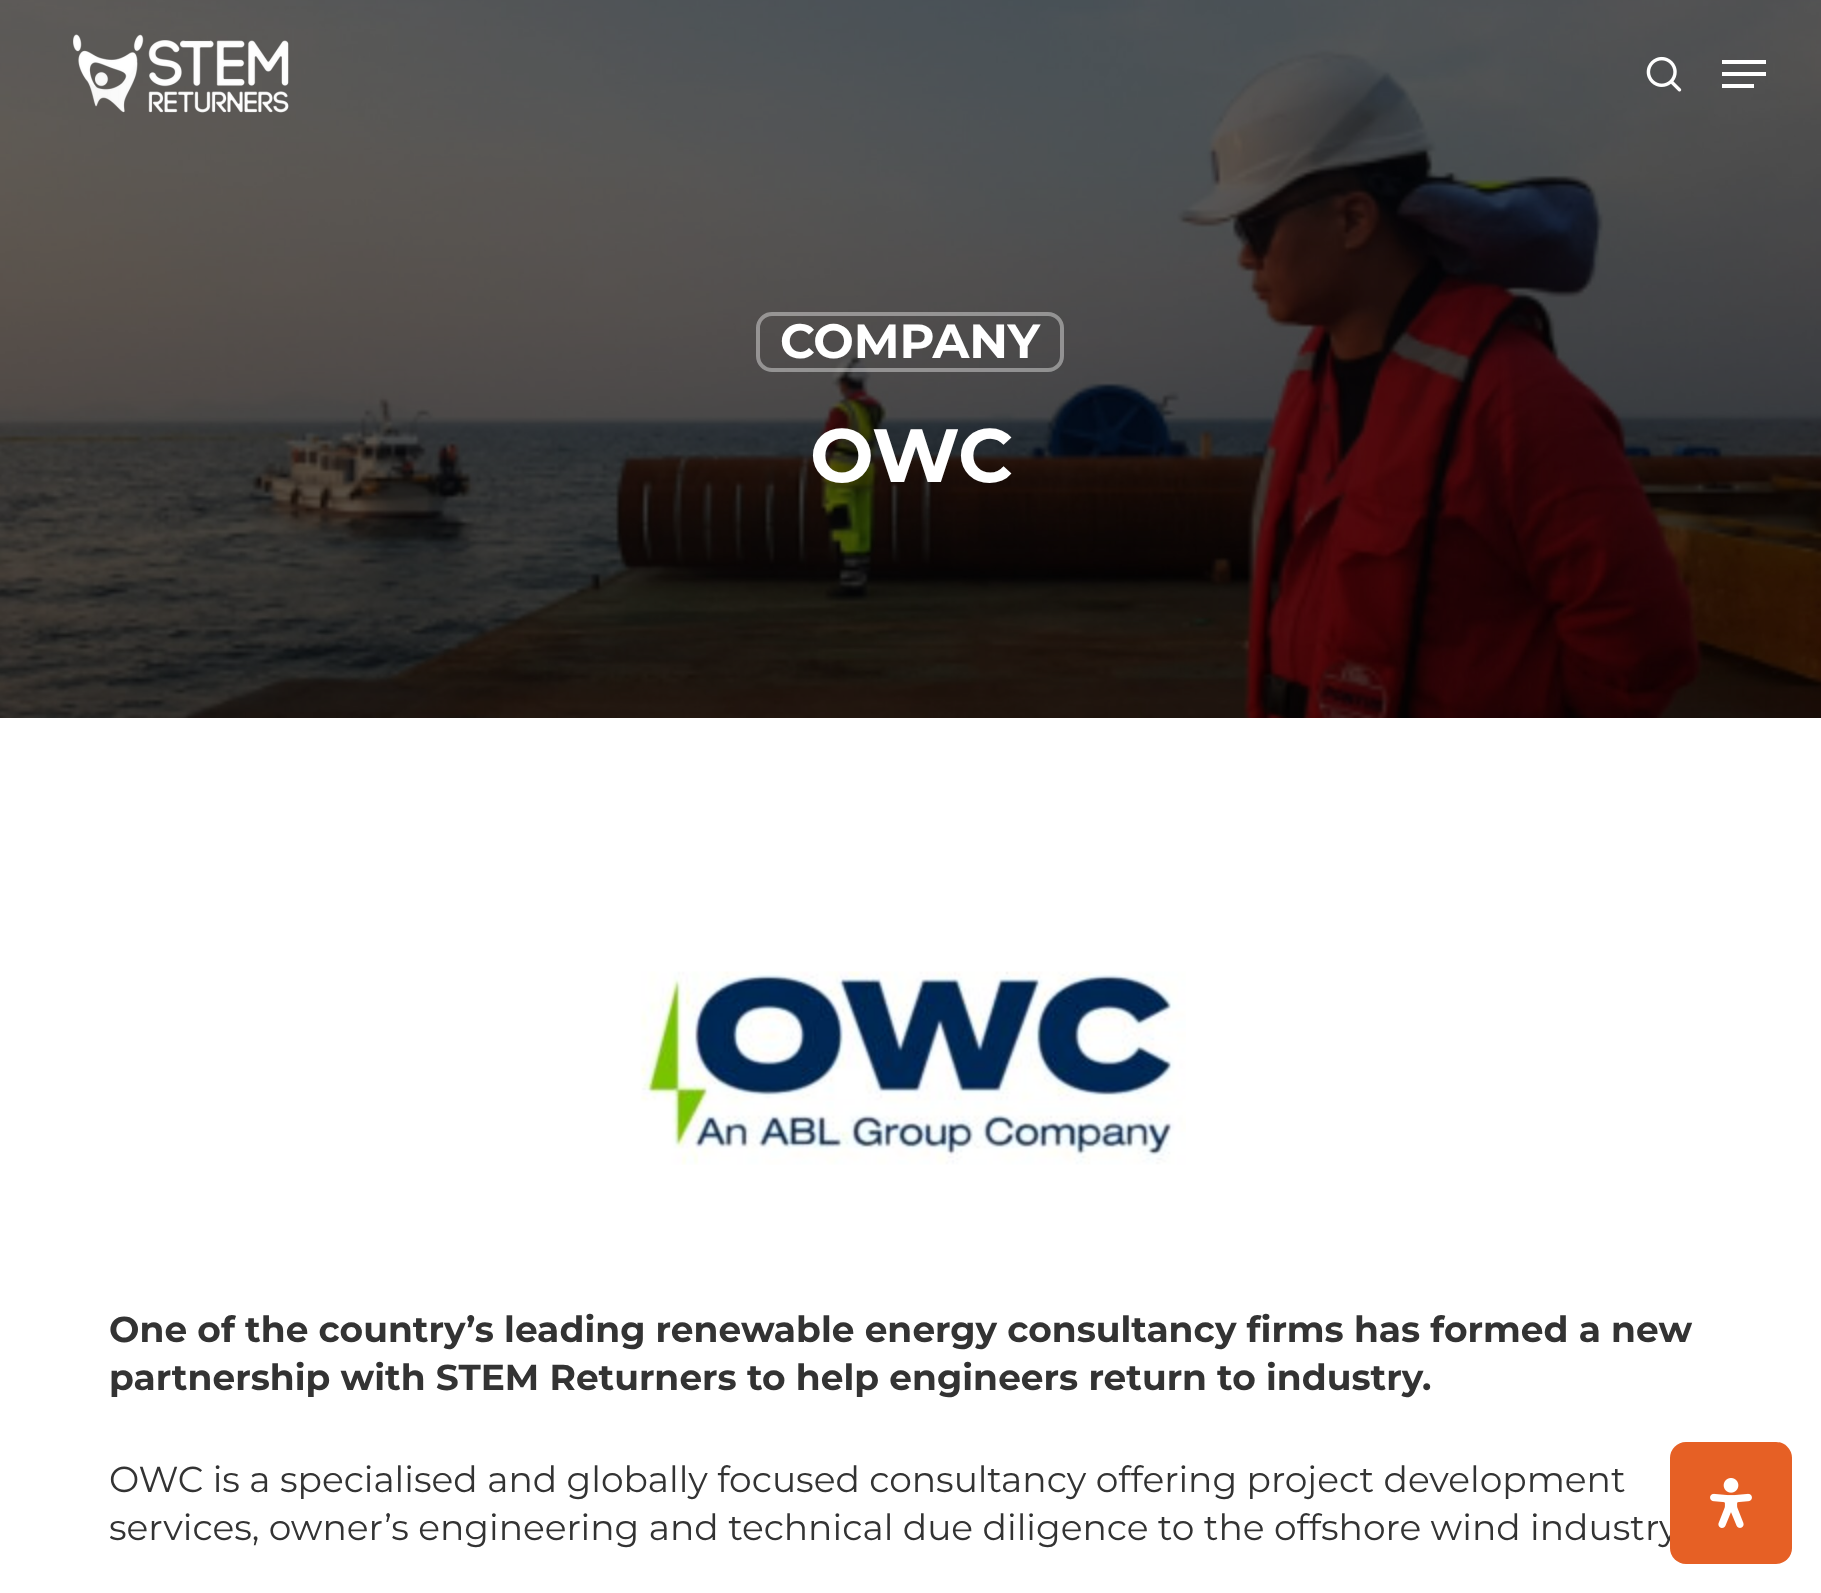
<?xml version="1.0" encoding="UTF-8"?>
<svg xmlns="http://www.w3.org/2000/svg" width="1821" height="1593">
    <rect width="100%" height="100%" fill="#FFFFFF"/>
    <image x="0" y="0" width="1821" height="718" href="img_03.png"/>
    <image x="73" y="34" width="216" height="79" href="img_01.png"/>
    <image x="1646" y="56" width="36" height="36" href="img_02.png"/>
    <rect x="1722" y="60" width="44" height="4" fill="#FFFFFF"/>
    <rect x="1722" y="84" width="32" height="4" fill="#FFFFFF"/>
    <rect x="1722" y="72" width="44" height="4" fill="#FFFFFF"/>
    <rect x="758" y="314" width="304" height="56" rx="14" fill="none" stroke="#FFFFFF" stroke-opacity="0.4" stroke-width="4"/>
    <text x="780" y="358" font-family="Montserrat" font-size="48" font-weight="700" fill="#FFFFFF">COMPANY</text>
    <text x="810" y="482" font-family="Montserrat" font-size="75.5" font-weight="700" fill="#FFFFFF">OWC</text>
    <image x="640" y="971" width="546" height="194" href="img_04.png"/>
    <text font-family="Montserrat" font-size="36" font-weight="700" fill="#333333">
        <tspan x="109" y="1342">One of the country’s leading renewable energy consultancy firms has formed a new</tspan>
        <tspan x="109" y="1390">partnership with STEM Returners to help engineers return to industry.</tspan>
    </text>
    <text font-family="Montserrat" font-size="36" fill="#333333">
        <tspan x="109" y="1492">OWC is a specialised and globally focused consultancy offering project development</tspan>
        <tspan x="109" y="1540">services, owner’s engineering and technical due diligence to the offshore wind industry</tspan>
    </text>
    <rect x="1670" y="1442" width="122" height="122" rx="16" fill="#E66025"/>
    <image x="1710" y="1478" width="42" height="50" href="img_05.png"/>
</svg>
